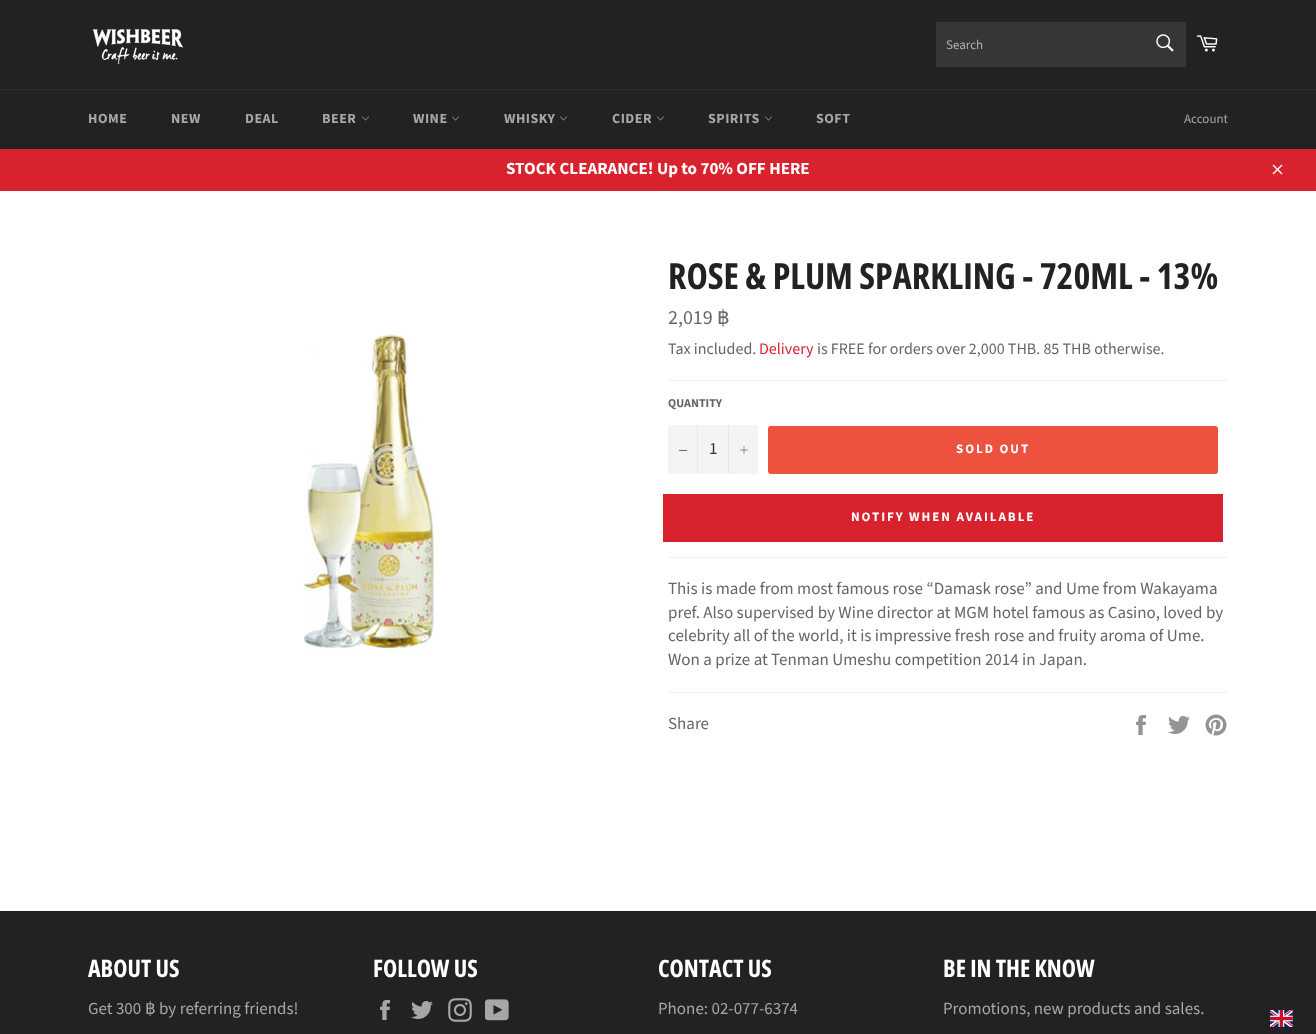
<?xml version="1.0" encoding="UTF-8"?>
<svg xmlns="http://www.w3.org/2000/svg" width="1316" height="1034">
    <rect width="100%" height="100%" fill="#222222"/>
    <image x="92" y="29" width="92" height="36" href="img_01.png"/>
    <rect x="936" y="22" width="250" height="45" fill="#363636"/>
    <text x="946" y="49" font-family="Source Sans Pro" font-size="13" fill="#AFAFAF">Search</text>
    <image x="1156" y="34" width="18" height="18" href="img_02.png"/>
    <image x="1196" y="35" width="22" height="17" href="img_03.png"/>
    <rect x="0" y="89" width="1316" height="1" fill="#2F2F2F"/>
    <text x="88" y="123" font-family="Source Sans Pro" font-size="14" font-weight="700" letter-spacing="0.5" fill="#A7A7A7">HOME</text>
    <text x="171" y="123" font-family="Source Sans Pro" font-size="14" font-weight="700" letter-spacing="0.5" fill="#A7A7A7">NEW</text>
    <text x="245" y="123" font-family="Source Sans Pro" font-size="14" font-weight="700" letter-spacing="0.5" fill="#A7A7A7">DEAL</text>
    <text x="322" y="123" font-family="Source Sans Pro" font-size="14" font-weight="700" letter-spacing="0.5" fill="#A7A7A7">BEER</text>
    <image x="362" y="116" width="7" height="5" href="img_04.png"/>
    <text x="413" y="123" font-family="Source Sans Pro" font-size="14" font-weight="700" letter-spacing="0.5" fill="#A7A7A7">WINE</text>
    <image x="452" y="116" width="7" height="5" href="img_04.png"/>
    <text x="504" y="123" font-family="Source Sans Pro" font-size="14" font-weight="700" letter-spacing="0.5" fill="#A7A7A7">WHISKY</text>
    <image x="560" y="116" width="7" height="5" href="img_04.png"/>
    <text x="612" y="123" font-family="Source Sans Pro" font-size="14" font-weight="700" letter-spacing="0.5" fill="#A7A7A7">CIDER</text>
    <image x="657" y="116" width="7" height="5" href="img_04.png"/>
    <text x="708" y="123" font-family="Source Sans Pro" font-size="14" font-weight="700" letter-spacing="0.5" fill="#A7A7A7">SPIRITS</text>
    <image x="765" y="116" width="7" height="5" href="img_04.png"/>
    <text x="816" y="123" font-family="Source Sans Pro" font-size="14" font-weight="700" letter-spacing="0.5" fill="#A7A7A7">SOFT</text>
    <text x="1184" y="123" font-family="Source Sans Pro" font-size="13" fill="#A7A7A7">Account</text>
    <rect x="0" y="149" width="1316" height="42" fill="#D8232F"/>
    <text x="506" y="174" font-family="Source Sans Pro" font-size="17" font-weight="700" fill="#FFFFFF">STOCK CLEARANCE! Up to 70% OFF HERE</text>
    <image x="1272" y="164" width="11" height="11" href="img_05.png"/>
    <rect x="0" y="191" width="1316" height="720" fill="#FFFFFF"/>
    <image x="303" y="331" width="133" height="320" href="img_06.png"/>
    <text x="668" y="289" font-family="Open Sans Condensed" font-size="36" font-weight="700" fill="#222222">ROSE &amp; PLUM SPARKLING - 720ML - 13%</text>
    <text x="668" y="324" font-family="Source Sans Pro" font-size="20" fill="#666666">2,019</text>
    <text x="717" y="324" font-family="DejaVu Sans" font-size="20" fill="#666666">฿</text>
    <text x="668" y="354" font-family="Source Sans Pro" font-size="16" fill="#666666">Tax included.</text>
    <text x="759" y="354" font-family="Source Sans Pro" font-size="16" fill="#D8232F">Delivery</text>
    <text x="817" y="354" font-family="Source Sans Pro" font-size="16" fill="#666666">is FREE for orders over 2,000 THB. 85 THB otherwise.</text>
    <rect x="668" y="380" width="560" height="1" fill="#F0F0F0"/>
    <text x="668" y="407" font-family="Source Sans Pro" font-size="12" font-weight="700" fill="#666666">QUANTITY</text>
    <rect x="668" y="425" width="90" height="49" fill="#F4F4F4"/>
    <rect x="697" y="425" width="1" height="49" fill="#E7E7E7"/>
    <rect x="679" y="450" width="8" height="1" fill="#666666"/>
    <text x="709" y="454" font-family="Source Sans Pro" font-size="17" fill="#333333">1</text>
    <rect x="728" y="425" width="1" height="49" fill="#E7E7E7"/>
    <image x="740" y="446" width="8" height="8" href="img_07.png"/>
    <rect x="768" y="426" width="450" height="48" rx="3" fill="#EC523E"/>
    <text x="956" y="453" font-family="Source Sans Pro" font-size="13" font-weight="700" letter-spacing="1.95" fill="#FFFFFF">SOLD OUT</text>
    <rect x="663" y="494" width="560" height="48" fill="#D8232F"/>
    <text x="851" y="521" font-family="Source Sans Pro" font-size="13" font-weight="700" letter-spacing="1.95" fill="#FFFFFF">NOTIFY WHEN AVAILABLE</text>
    <rect x="668" y="557" width="560" height="1" fill="#F0F0F0"/>
    <text font-family="Source Sans Pro" font-size="17" fill="#666666">
        <tspan x="668" y="594">This is made from most famous rose “Damask rose” and Ume from Wakayama</tspan>
        <tspan x="668" y="618">pref. Also supervised by Wine director at MGM hotel famous as Casino, loved by</tspan>
        <tspan x="668" y="641">celebrity all of the world, it is impressive fresh rose and fruity aroma of Ume.</tspan>
        <tspan x="668" y="665">Won a prize at Tenman Umeshu competition 2014 in Japan.</tspan>
    </text>
    <rect x="668" y="692" width="560" height="1" fill="#F0F0F0"/>
    <text x="668" y="729" font-family="Source Sans Pro" font-size="17" fill="#666666">Share</text>
    <image x="1136" y="715" width="10" height="20" href="img_08.png"/>
    <image x="1168" y="716" width="22" height="18" href="img_09.png"/>
    <image x="1205" y="714" width="22" height="22" href="img_10.png"/>
    <text x="88" y="977" font-family="Open Sans Condensed" font-size="24" font-weight="700" fill="#FFFFFF">ABOUT US</text>
    <text x="88" y="1014" font-family="Source Sans Pro" font-size="17" fill="#A7A7A7">Get 300</text>
    <text x="145" y="1014" font-family="DejaVu Sans" font-size="17" fill="#A7A7A7">฿</text>
    <text x="159" y="1014" font-family="Source Sans Pro" font-size="17" fill="#A7A7A7">by referring friends!</text>
    <text x="373" y="977" font-family="Open Sans Condensed" font-size="24" font-weight="700" fill="#FFFFFF">FOLLOW US</text>
    <image x="380" y="1000" width="10" height="20" href="img_11.png"/>
    <image x="411" y="1001" width="22" height="18" href="img_12.png"/>
    <image x="448" y="998" width="24" height="24" href="img_13.png"/>
    <image x="485" y="999" width="24" height="22" href="img_14.png"/>
    <text x="658" y="977" font-family="Open Sans Condensed" font-size="24" font-weight="700" fill="#FFFFFF">CONTACT US</text>
    <text x="658" y="1014" font-family="Source Sans Pro" font-size="17" fill="#A7A7A7">Phone: 02-077-6374</text>
    <text x="943" y="977" font-family="Open Sans Condensed" font-size="24" font-weight="700" fill="#FFFFFF">BE IN THE KNOW</text>
    <text x="943" y="1014" font-family="Source Sans Pro" font-size="17" fill="#A7A7A7">Promotions, new products and sales.</text>
    <image x="1270" y="1010" width="23" height="17" href="img_15.png"/>
</svg>
